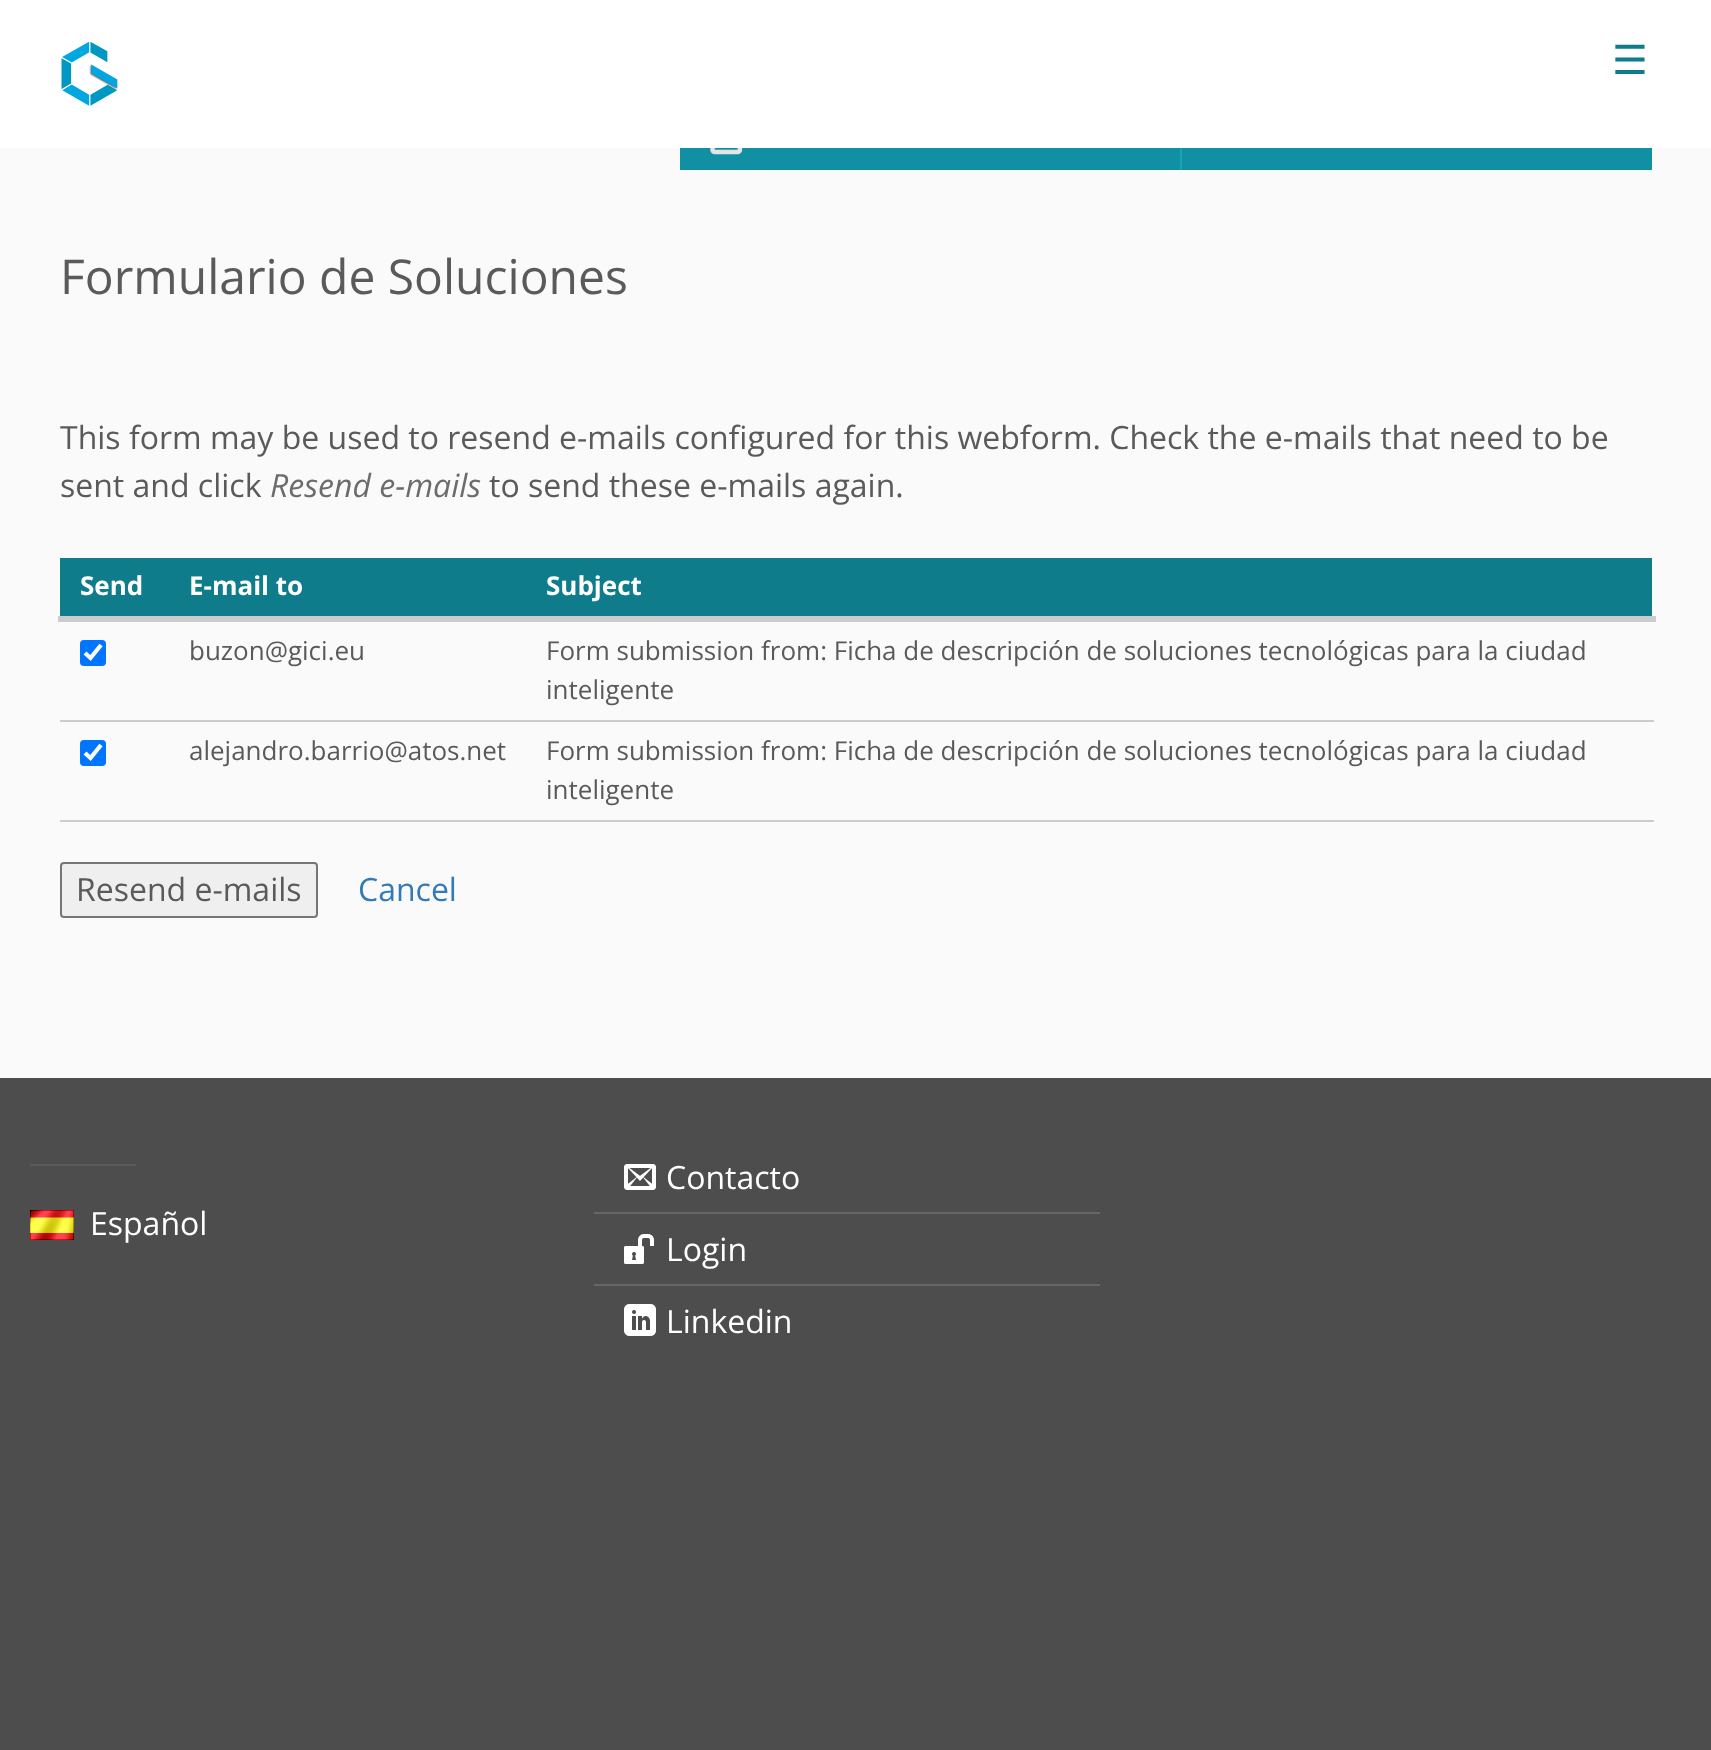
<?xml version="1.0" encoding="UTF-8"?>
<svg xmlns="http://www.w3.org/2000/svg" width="1711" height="1750">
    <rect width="100%" height="100%" fill="#4D4D4D"/>
    <rect x="0" y="0" width="1711" height="148" fill="#FFFFFF"/>
    <image x="61" y="41" width="57" height="65" href="img_01.png"/>
    <text x="1612" y="74" font-family="DejaVu Sans" font-size="40" fill="#0F7C8C">☰</text>
    <rect x="0" y="148" width="1711" height="930" fill="#FAFAFA"/>
    <rect x="1180" y="148" width="2" height="22" fill="#14A5BA"/>
    <rect x="680" y="148" width="500" height="22" fill="#1190A3"/>
    <image x="710" y="148" width="33" height="7" href="img_02.png"/>
    <rect x="1182" y="148" width="470" height="22" fill="#1190A3"/>
    <text x="60" y="294" font-family="Open Sans" font-size="48" fill="#5A5A5A">Formulario de Soluciones</text>
    <text font-family="Open Sans" font-size="32" fill="#5A5A5A">
        <tspan x="60" y="449">This form may be used to resend e-mails configured for this webform. Check the e-mails that need to be</tspan>
        <tspan x="60" y="497">sent and click</tspan>
    </text>
    <text x="270" y="497" font-family="Open Sans" font-size="32" font-style="italic" fill="#6C6C6C">Resend e-mails</text>
    <text x="489" y="497" font-family="Open Sans" font-size="32" fill="#5A5A5A">to send these e-mails again.</text>
    <rect x="60" y="558" width="1592" height="58" fill="#0F7C8C"/>
    <text x="80" y="595" font-family="Open Sans" font-size="26" font-weight="700" fill="#FFFFFF">Send</text>
    <text x="189" y="595" font-family="Open Sans" font-size="26" font-weight="700" fill="#FFFFFF">E-mail to</text>
    <rect x="58" y="616" width="1598" height="6" fill="#CCCCCC"/>
    <text x="546" y="595" font-family="Open Sans" font-size="26" font-weight="700" fill="#FFFFFF">Subject</text>
    <rect x="60" y="720" width="1594" height="2" fill="#CCCCCC"/>
    <rect x="80" y="640" width="26" height="26" rx="4" fill="#0075FF"/>
    <path d="M 85 653 L 90.5 658 L 101 645" fill="none" stroke="#FFFFFF" stroke-width="4.2"/>
    <text x="189" y="660" font-family="Open Sans" font-size="26" fill="#5A5A5A">buzon@gici.eu</text>
    <text font-family="Open Sans" font-size="26" fill="#5A5A5A">
        <tspan x="546" y="660">Form submission from: Ficha de descripción de soluciones tecnológicas para la ciudad</tspan>
        <tspan x="546" y="699">inteligente</tspan>
    </text>
    <rect x="60" y="820" width="1594" height="2" fill="#CCCCCC"/>
    <rect x="80" y="740" width="26" height="26" rx="4" fill="#0075FF"/>
    <path d="M 85 753 L 90.5 758 L 101 745" fill="none" stroke="#FFFFFF" stroke-width="4.2"/>
    <text x="189" y="760" font-family="Open Sans" font-size="26" fill="#5A5A5A">alejandro.barrio@atos.net</text>
    <text font-family="Open Sans" font-size="26" fill="#5A5A5A">
        <tspan x="546" y="760">Form submission from: Ficha de descripción de soluciones tecnológicas para la ciudad</tspan>
        <tspan x="546" y="799">inteligente</tspan>
    </text>
    <rect x="61" y="863" width="256" height="54" rx="3" fill="#EFEFEF" stroke="#767676" stroke-width="2"/>
    <text x="76" y="901" font-family="Open Sans" font-size="32" fill="#5A5A5A">Resend e-mails</text>
    <text x="358" y="901" font-family="Open Sans" font-size="32" fill="#337AB7">Cancel</text>
    <rect x="30" y="1164" width="106" height="2" fill="#5A5A5A"/>
    <image x="30" y="1210" width="44" height="30" href="img_03.png"/>
    <text x="90" y="1235" font-family="Open Sans" font-size="32" fill="#FFFFFF">Español</text>
    <rect x="594" y="1212" width="506" height="2" fill="#666666"/>
    <image x="624" y="1164" width="32" height="26" href="img_04.png"/>
    <text x="666" y="1189" font-family="Open Sans" font-size="32" fill="#FFFFFF">Contacto</text>
    <rect x="594" y="1284" width="506" height="2" fill="#666666"/>
    <image x="624" y="1234" width="30" height="30" href="img_05.png"/>
    <text x="666" y="1261" font-family="Open Sans" font-size="32" fill="#FFFFFF">Login</text>
    <image x="624" y="1304" width="32" height="32" href="img_06.png"/>
    <text x="666" y="1333" font-family="Open Sans" font-size="32" fill="#FFFFFF">Linkedin</text>
</svg>
